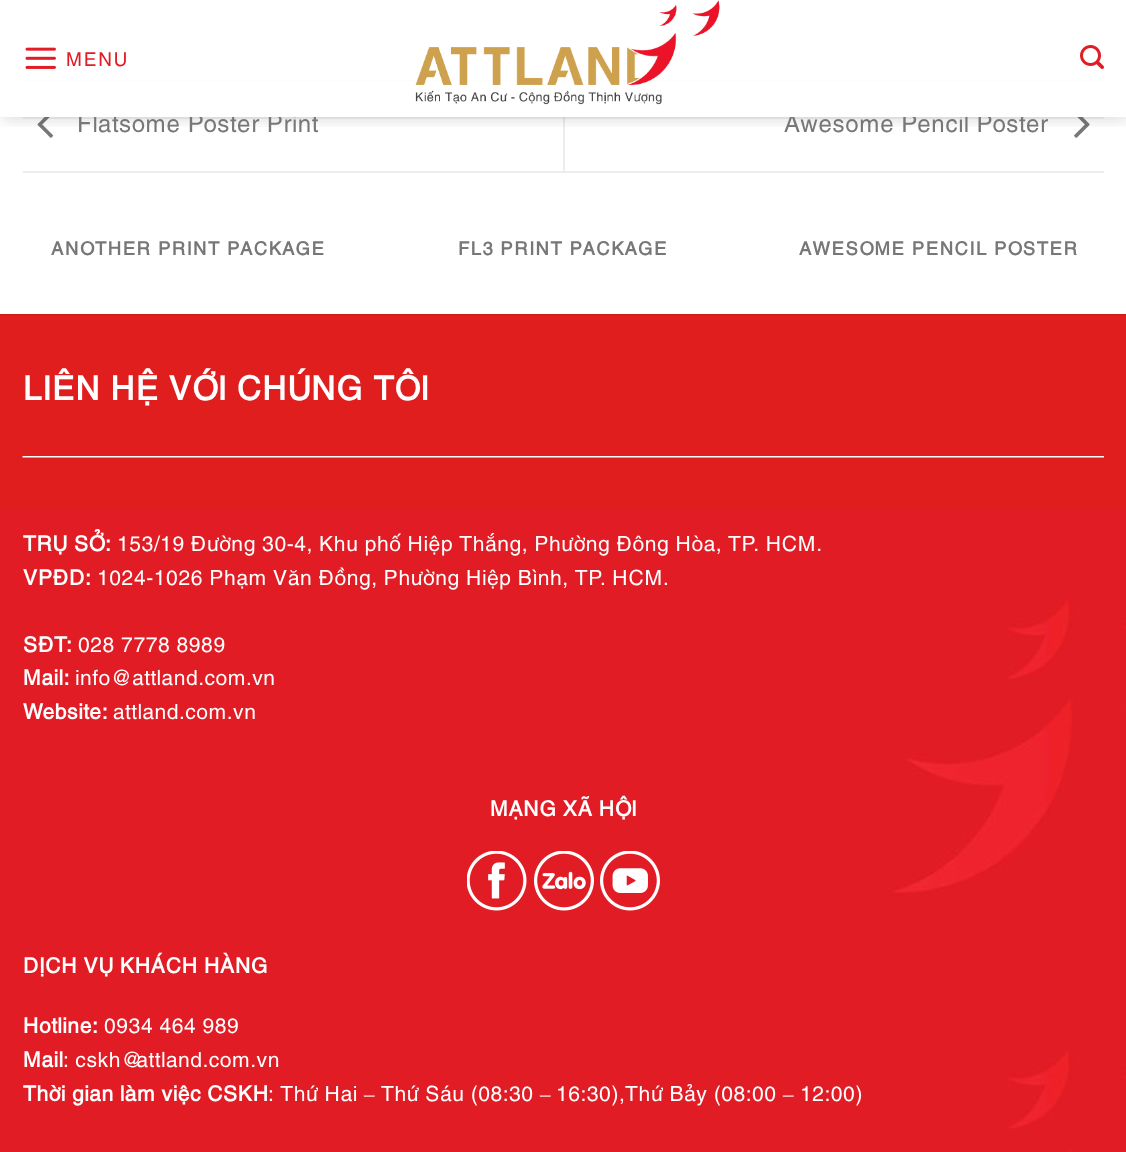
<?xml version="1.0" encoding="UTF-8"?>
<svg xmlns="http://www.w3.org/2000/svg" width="1126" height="1152">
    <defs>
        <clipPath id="clip1"><rect x="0" y="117" width="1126" height="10"/></clipPath>
        <filter id="blur1" x="-50%" y="-200%" width="200%" height="500%"><feGaussianBlur stdDeviation="7.5"/></filter>
    </defs>
    <rect width="100%" height="100%" fill="#FFFFFF"/>
    <rect x="23" y="80" width="1081" height="2" fill="#ECECEC"/>
    <image x="37" y="111" width="17" height="27" href="img_04.png"/>
    <rect x="563" y="81" width="2" height="90" fill="#ECECEC"/>
    <image x="1074" y="111" width="16" height="27" href="img_05.png"/>
    <g clip-path="url(#clip1)">
        <rect x="2" y="2" width="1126" height="117" fill="#000000" fill-opacity="0.15" filter="url(#blur1)"/>
    </g>
    <text x="77" y="132" font-family="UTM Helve" font-size="24" fill="#777777">Flatsome Poster Print</text>
    <text x="784" y="132" font-family="UTM Helve" font-size="24" fill="#777777">Awesome Pencil Poster</text>
    <rect x="23" y="80" width="1081" height="37" fill="#FFFFFF" fill-opacity="0.9"/>
    <image x="25" y="47" width="31" height="22" href="img_01.png"/>
    <text x="66" y="66" font-family="UTM Helve" font-size="19" letter-spacing="1" fill="#E11C25">MENU</text>
    <image x="415" y="0" width="305" height="105" href="img_02.png"/>
    <image x="1080" y="45" width="24" height="24" href="img_03.png"/>
    <rect x="23" y="117" width="1081" height="2" fill="#777777" fill-opacity="0.1"/>
    <rect x="45" y="111" width="1037" height="6" fill="#FFFFFF" fill-opacity="0.9"/>
    <rect x="23" y="171" width="1081" height="2" fill="#ECECEC"/>
    <text x="51" y="255" font-family="UTM Helve" font-size="18.4" font-weight="700" letter-spacing="0.9" fill="#777777">ANOTHER PRINT PACKAGE</text>
    <text x="458" y="255" font-family="UTM Helve" font-size="18.4" font-weight="700" letter-spacing="0.9" fill="#777777">FL3 PRINT PACKAGE</text>
    <text x="799" y="255" font-family="UTM Helve" font-size="18.4" font-weight="700" letter-spacing="0.9" fill="#777777">AWESOME PENCIL POSTER</text>
    <rect x="0" y="316" width="1126" height="194" fill="#E01E1E"/>
    <rect x="0" y="314" width="1126" height="2" fill="#D51D1D"/>
    <text x="23" y="400" font-family="UTM Helve" font-size="33" font-weight="700" fill="#FFFFFF">LIÊN HỆ VỚI CHÚNG TÔI</text>
    <image x="22" y="456" width="1082" height="2" href="img_06.png"/>
    <image x="0" y="510" width="1126" height="642" href="img_07.png"/>
    <text x="23" y="551" font-family="UTM Helve" font-size="21" font-weight="700" fill="#FFFFFF">TRỤ SỞ:</text>
    <text x="117" y="551" font-family="UTM Helve" font-size="21" fill="#FFFFFF">153/19 Đường 30-4, Khu phố Hiệp Thắng, Phường Đông Hòa, TP. HCM.</text>
    <text x="23" y="585" font-family="UTM Helve" font-size="21" font-weight="700" fill="#FFFFFF">VPĐD:</text>
    <text x="97" y="585" font-family="UTM Helve" font-size="21" fill="#FFFFFF">1024-1026 Phạm Văn Đồng, Phường Hiệp Bình, TP. HCM.</text>
    <text x="23" y="652" font-family="UTM Helve" font-size="21" font-weight="700" fill="#FFFFFF">SĐT:</text>
    <text x="78" y="652" font-family="UTM Helve" font-size="21" fill="#FFFFFF">028 7778 8989</text>
    <text x="23" y="685" font-family="UTM Helve" font-size="21" font-weight="700" fill="#FFFFFF">Mail:</text>
    <text x="75" y="685" font-family="UTM Helve" font-size="21" fill="#FFFFFF">info@ attland.com.vn</text>
    <text x="23" y="719" font-family="UTM Helve" font-size="21" font-weight="700" fill="#FFFFFF">Website:</text>
    <text x="113" y="719" font-family="UTM Helve" font-size="21" fill="#FFFFFF">attland.com.vn</text>
    <text x="490" y="816" font-family="UTM Helve" font-size="21" font-weight="700" fill="#FFFFFF">MẠNG XÃ HỘI</text>
    <image x="467" y="851" width="60" height="60" href="img_08.png"/>
    <image x="534" y="851" width="60" height="60" href="img_09.png"/>
    <image x="600" y="851" width="60" height="60" href="img_10.png"/>
    <text x="23" y="973" font-family="UTM Helve" font-size="21" font-weight="700" fill="#FFFFFF">DỊCH VỤ KHÁCH HÀNG</text>
    <text x="23" y="1033" font-family="UTM Helve" font-size="21" font-weight="700" fill="#FFFFFF">Hotline:</text>
    <text x="104" y="1033" font-family="UTM Helve" font-size="21" fill="#FFFFFF">0934 464 989</text>
    <text x="23" y="1067" font-family="UTM Helve" font-size="21" font-weight="700" fill="#FFFFFF">Mail</text>
    <text x="63" y="1067" font-family="UTM Helve" font-size="21" fill="#FFFFFF">: cskh@attland.com.vn</text>
    <text x="23" y="1101" font-family="UTM Helve" font-size="21" font-weight="700" fill="#FFFFFF">Thời gian làm việc CSKH</text>
    <text x="268" y="1101" font-family="UTM Helve" font-size="21" fill="#FFFFFF">: Thứ Hai</text>
    <text x="364" y="1101" font-family="Liberation Serif" font-size="21" fill="#FFFFFF">–</text>
    <text x="381" y="1101" font-family="UTM Helve" font-size="21" fill="#FFFFFF">Thứ Sáu (08:30</text>
    <text x="540" y="1101" font-family="Liberation Serif" font-size="21" fill="#FFFFFF">–</text>
    <text x="556" y="1101" font-family="UTM Helve" font-size="21" fill="#FFFFFF">16:30),Thứ Bảy (08:00</text>
    <text x="783" y="1101" font-family="Liberation Serif" font-size="21" fill="#FFFFFF">–</text>
    <text x="800" y="1101" font-family="UTM Helve" font-size="21" fill="#FFFFFF">12:00)</text>
</svg>
